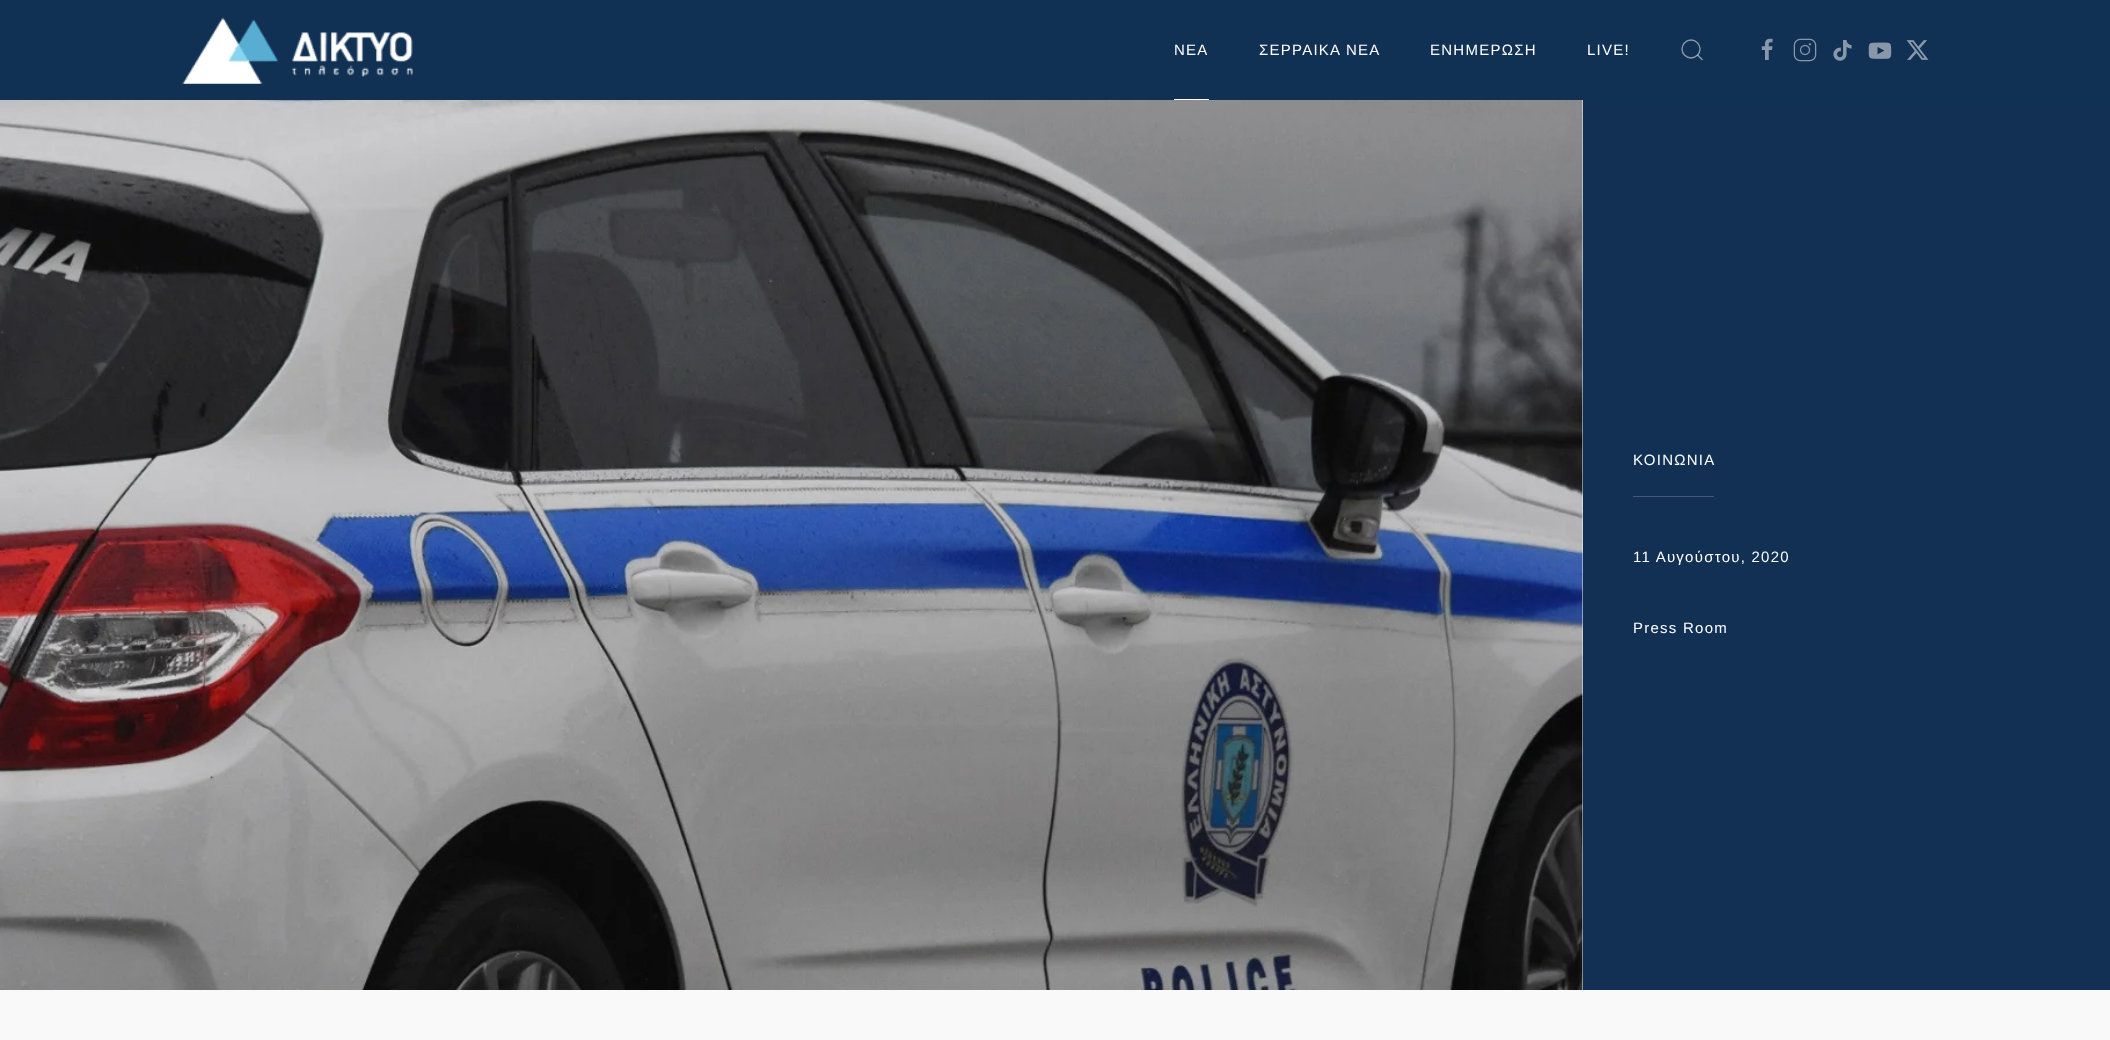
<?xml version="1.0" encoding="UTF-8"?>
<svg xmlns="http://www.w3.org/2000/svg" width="2110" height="1040">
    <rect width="100%" height="100%" fill="#F9F9F9"/>
    <rect x="0" y="0" width="2110" height="100" fill="#113154"/>
    <image x="182" y="17" width="231" height="67" href="img_01.png"/>
    <text x="1174" y="55" font-family="Liberation Sans" font-size="15" letter-spacing="1.25" fill="#FFFFFF">NEA</text>
    <rect x="1174" y="99" width="35" height="1" fill="#FFFFFF"/>
    <text x="1259" y="55" font-family="Liberation Sans" font-size="15" letter-spacing="1.25" fill="#FFFFFF">ΣΕΡΡΑΙΚΑ ΝΕΑ</text>
    <text x="1430" y="55" font-family="Liberation Sans" font-size="15" letter-spacing="1.25" fill="#FFFFFF">ΕΝΗΜΕΡΩΣΗ</text>
    <text x="1587" y="55" font-family="Liberation Sans" font-size="15" letter-spacing="1.25" fill="#FFFFFF">LIVE!</text>
    <circle cx="1691" cy="49" r="9" fill="none" stroke="#8898AA" stroke-width="1.4"/>
    <path d="M 1697.5 55 L 1702.5 60 Z" fill="none" stroke="#FFFFFF" stroke-opacity="0.5" stroke-width="1.4"/>
    <image x="1761" y="38" width="12" height="22" href="img_02.png"/>
    <image x="1793" y="38" width="24" height="24" href="img_03.png"/>
    <image x="1833" y="40" width="19" height="21" href="img_04.png"/>
    <image x="1868" y="42" width="24" height="17" href="img_05.png"/>
    <image x="1906" y="40" width="23" height="20" href="img_06.png"/>
    <image x="0" y="100" width="1583" height="890" href="img_07.png"/>
    <rect x="1583" y="100" width="527" height="890" fill="#113054"/>
    <text x="1633" y="465" font-family="Liberation Sans" font-size="15" letter-spacing="1.25" fill="#FFFFFF">ΚΟΙΝΩΝΙΑ</text>
    <rect x="1633" y="496" width="81" height="1" fill="#415976"/>
    <text x="1633" y="562" font-family="Liberation Sans" font-size="15" letter-spacing="1.25" fill="#FFFFFF">11 Αυγούστου, 2020</text>
    <text x="1633" y="633" font-family="Liberation Sans" font-size="15" letter-spacing="1.25" fill="#FFFFFF">Press Room</text>
</svg>
